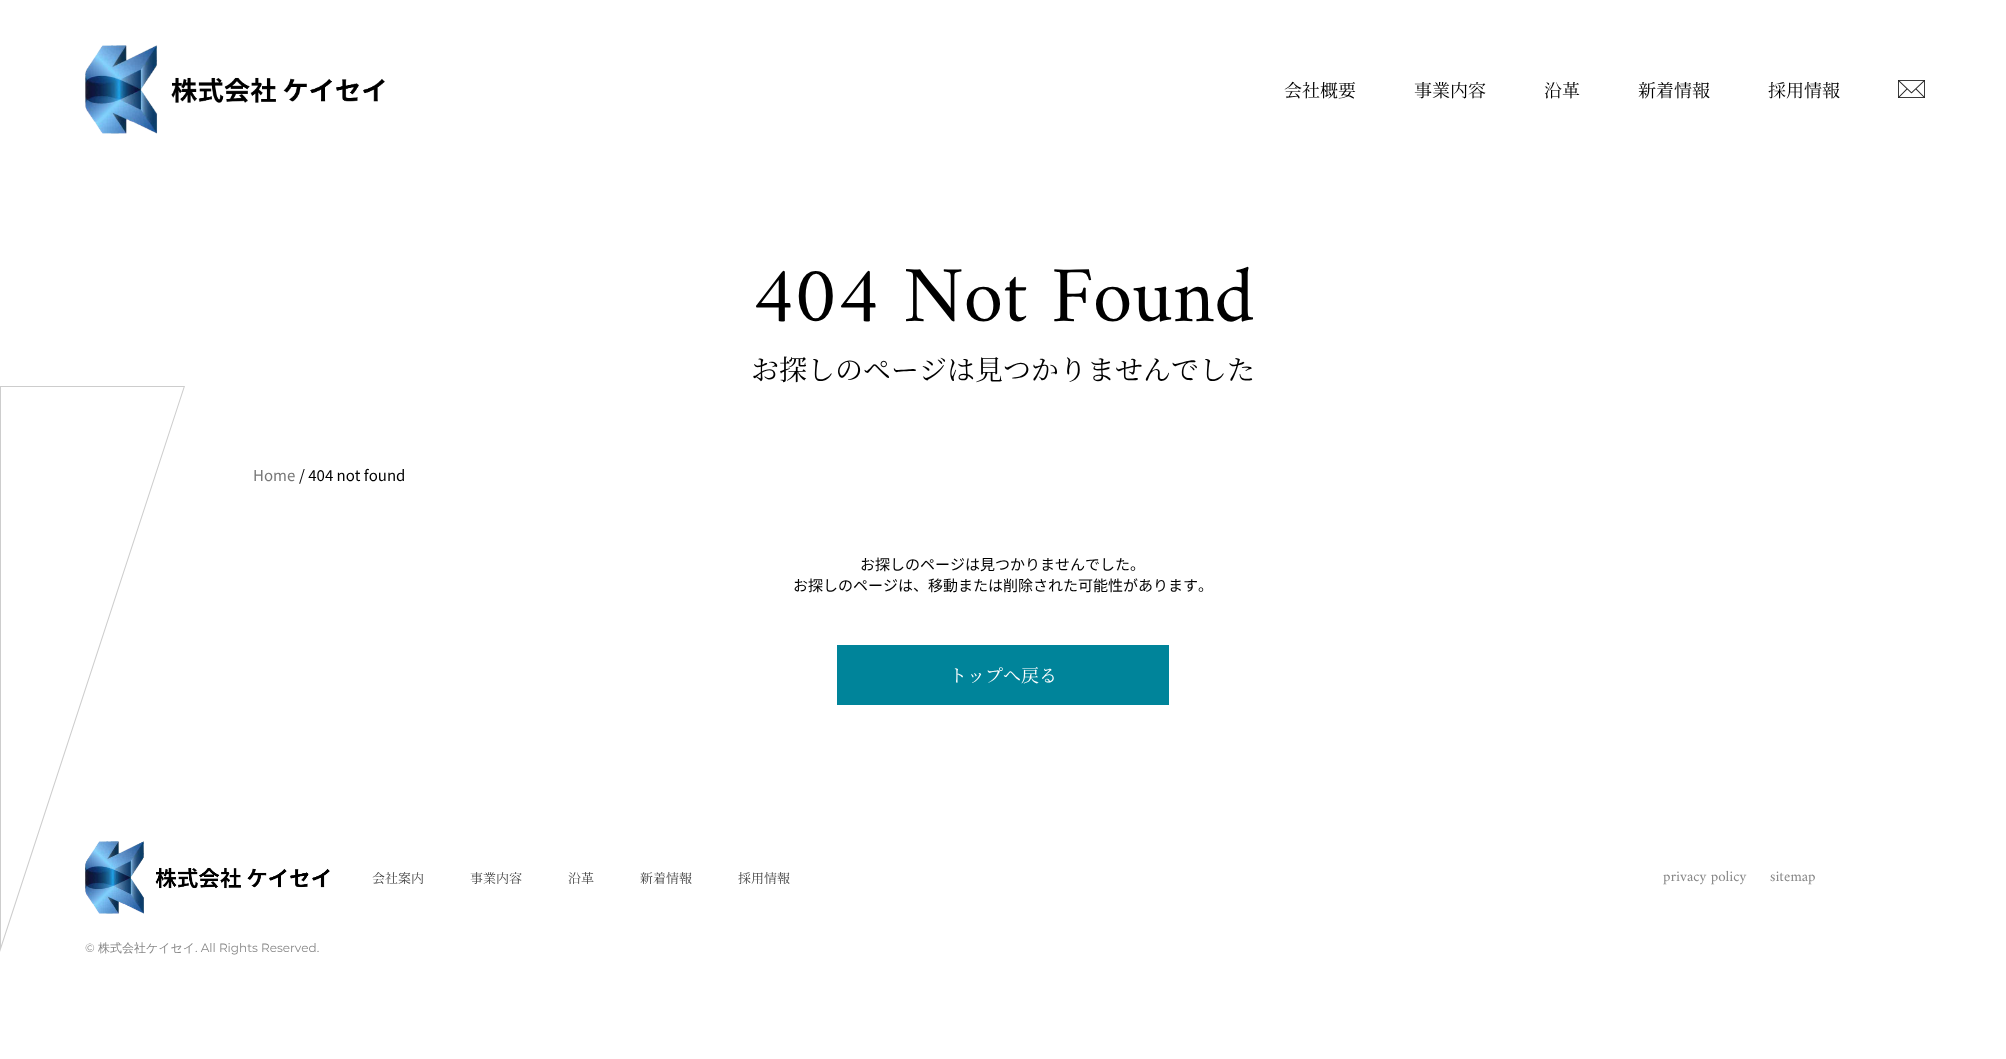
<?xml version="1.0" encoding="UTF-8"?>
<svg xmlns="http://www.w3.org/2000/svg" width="2006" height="1059">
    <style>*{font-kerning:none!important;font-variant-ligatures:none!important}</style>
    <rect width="100%" height="100%" fill="#FFFFFF"/>
    <image x="85" y="45" width="300" height="89" href="img_01.png"/>
    <text x="1284" y="97" font-family="Noto Serif JP" font-size="18" font-weight="200" fill="#000000">会社概要</text>
    <text x="1414" y="97" font-family="Noto Serif JP" font-size="18" font-weight="200" fill="#000000">事業内容</text>
    <text x="1544" y="97" font-family="Noto Serif JP" font-size="18" font-weight="200" fill="#000000">沿革</text>
    <text x="1638" y="97" font-family="Noto Serif JP" font-size="18" font-weight="200" fill="#000000">新着情報</text>
    <text x="1768" y="97" font-family="Noto Serif JP" font-size="18" font-weight="200" fill="#000000">採用情報</text>
    <image x="1898" y="80" width="27" height="18" href="img_02.png"/>
    <text x="752" y="321" font-family="Amiri" font-size="80" fill="#000000">404 Not Found</text>
    <text x="751" y="380" font-family="Noto Serif JP" font-size="28" font-weight="200" fill="#000000">お探しのページは見つかりませんでした</text>
    <text x="253" y="481" font-family="Noto Sans JP" font-size="15" font-weight="100" fill="#777777">Home</text>
    <text x="299" y="481" font-family="Noto Sans JP" font-size="15" font-weight="100" fill="#000000">/ 404 not found</text>
    <image x="0" y="386" width="185" height="566" href="img_03.png"/>
    <text x="860" y="570" font-family="Noto Sans JP" font-size="15" font-weight="100" fill="#000000">お探しのページは見つかりませんでした。</text>
    <text x="793" y="591" font-family="Noto Sans JP" font-size="15" font-weight="100" fill="#000000">お探しのページは、移動または削除された可能性があります。</text>
    <rect x="837" y="645" width="332" height="60" fill="#00849A"/>
    <text x="949" y="682" font-family="Noto Serif JP" font-size="18" font-weight="200" fill="#FFFFFF">トップへ戻る</text>
    <image x="85" y="841" width="245" height="73" href="img_04.png"/>
    <text x="372" y="883" font-family="Noto Serif JP" font-size="13" font-weight="200" fill="#444444">会社案内</text>
    <text x="470" y="883" font-family="Noto Serif JP" font-size="13" font-weight="200" fill="#444444">事業内容</text>
    <text x="568" y="883" font-family="Noto Serif JP" font-size="13" font-weight="200" fill="#444444">沿革</text>
    <text x="640" y="883" font-family="Noto Serif JP" font-size="13" font-weight="200" fill="#444444">新着情報</text>
    <text x="738" y="883" font-family="Noto Serif JP" font-size="13" font-weight="200" fill="#444444">採用情報</text>
    <text x="1663" y="881" font-family="Amiri" font-size="15" fill="#888888">privacy policy</text>
    <text x="1770" y="881" font-family="Amiri" font-size="15" fill="#888888">sitemap</text>
    <text x="85" y="952" font-family="Montserrat" font-size="12" font-weight="100" fill="#888888">©</text>
    <text x="98" y="952" font-family="WenQuanYi Zen Hei" font-size="12" font-weight="500" fill="#888888">株式会社ケイセイ</text>
    <text x="195" y="952" font-family="Montserrat" font-size="12" font-weight="100" fill="#888888">. All Rights Reserved.</text>
</svg>
